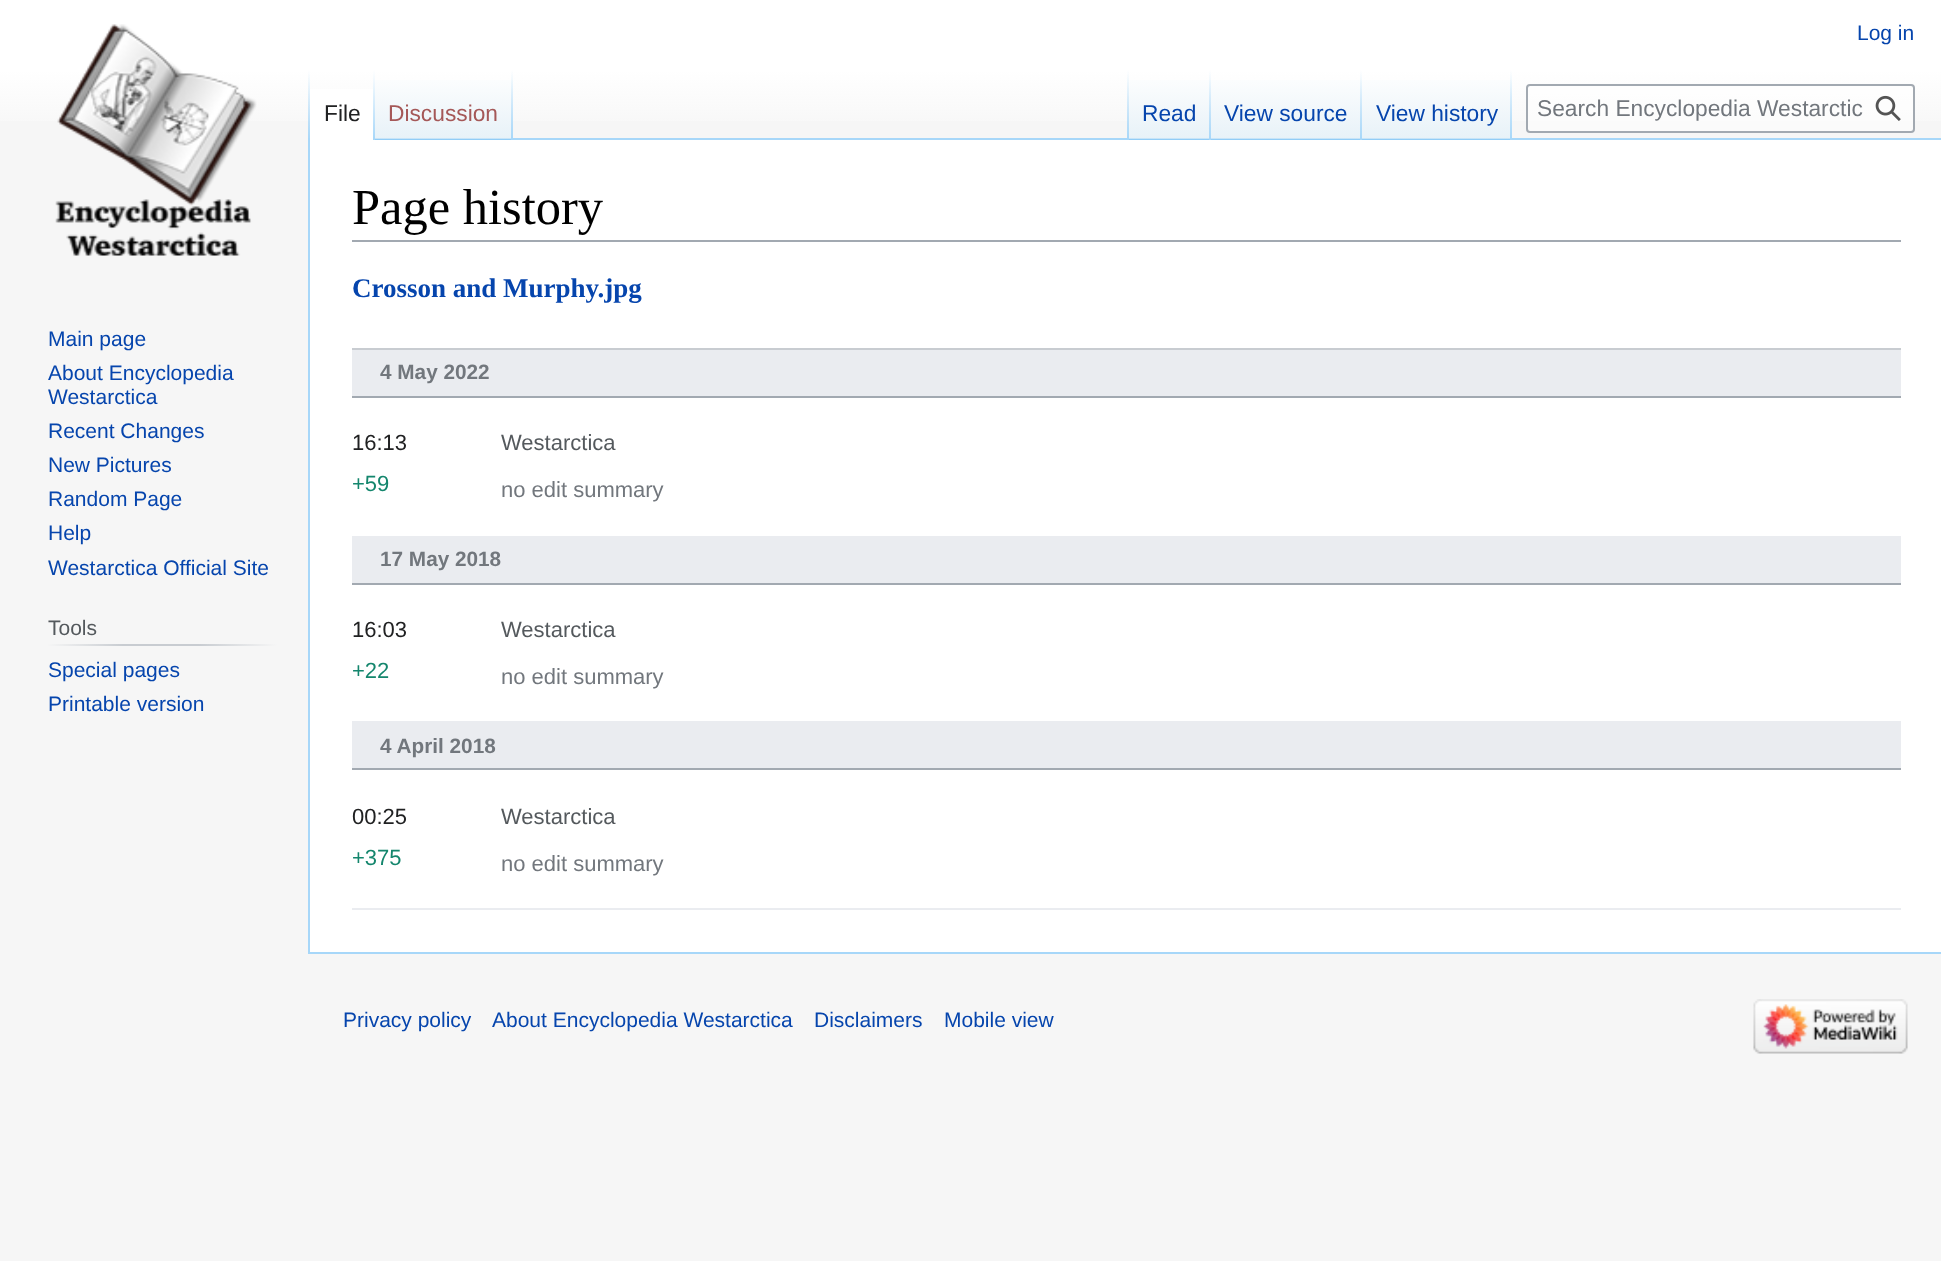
<?xml version="1.0" encoding="UTF-8"?>
<svg xmlns="http://www.w3.org/2000/svg" width="1941" height="1261">
    <defs>
        <linearGradient id="g1" gradientUnits="userSpaceOnUse" x1="971" y1="0" x2="971" y2="140"><stop offset="0.5" stop-color="#FFFFFF"/><stop offset="1" stop-color="#F6F6F6"/></linearGradient>
        <linearGradient id="g2" gradientUnits="userSpaceOnUse" x1="309" y1="70" x2="309" y2="140"><stop offset="0" stop-color="#A7D7F9" stop-opacity="0"/><stop offset="1" stop-color="#A7D7F9"/></linearGradient>
        <linearGradient id="g3" gradientUnits="userSpaceOnUse" x1="374" y1="70" x2="374" y2="140"><stop offset="0" stop-color="#FFFFFF"/><stop offset="1" stop-color="#A7D7F9"/></linearGradient>
        <linearGradient id="g4" gradientUnits="userSpaceOnUse" x1="444" y1="140" x2="444" y2="70"><stop offset="0" stop-color="#77C1F6"/><stop offset="0.03" stop-color="#E8F2F8"/><stop offset="1" stop-color="#FFFFFF"/></linearGradient>
        <linearGradient id="g5" gradientUnits="userSpaceOnUse" x1="512" y1="70" x2="512" y2="140"><stop offset="0" stop-color="#A7D7F9" stop-opacity="0"/><stop offset="1" stop-color="#A7D7F9"/></linearGradient>
        <linearGradient id="g6" gradientUnits="userSpaceOnUse" x1="1128" y1="70" x2="1128" y2="140"><stop offset="0" stop-color="#A7D7F9" stop-opacity="0"/><stop offset="1" stop-color="#A7D7F9"/></linearGradient>
        <linearGradient id="g7" gradientUnits="userSpaceOnUse" x1="1170" y1="140" x2="1170" y2="70"><stop offset="0" stop-color="#77C1F6"/><stop offset="0.03" stop-color="#E8F2F8"/><stop offset="1" stop-color="#FFFFFF"/></linearGradient>
        <linearGradient id="g8" gradientUnits="userSpaceOnUse" x1="1210" y1="70" x2="1210" y2="140"><stop offset="0" stop-color="#A7D7F9" stop-opacity="0"/><stop offset="1" stop-color="#A7D7F9"/></linearGradient>
        <linearGradient id="g9" gradientUnits="userSpaceOnUse" x1="1286" y1="140" x2="1286" y2="70"><stop offset="0" stop-color="#77C1F6"/><stop offset="0.03" stop-color="#E8F2F8"/><stop offset="1" stop-color="#FFFFFF"/></linearGradient>
        <linearGradient id="g10" gradientUnits="userSpaceOnUse" x1="1361" y1="70" x2="1361" y2="140"><stop offset="0" stop-color="#A7D7F9" stop-opacity="0"/><stop offset="1" stop-color="#A7D7F9"/></linearGradient>
        <linearGradient id="g11" gradientUnits="userSpaceOnUse" x1="1437" y1="140" x2="1437" y2="70"><stop offset="0" stop-color="#77C1F6"/><stop offset="0.03" stop-color="#E8F2F8"/><stop offset="1" stop-color="#FFFFFF"/></linearGradient>
        <linearGradient id="g12" gradientUnits="userSpaceOnUse" x1="1511" y1="70" x2="1511" y2="140"><stop offset="0" stop-color="#A7D7F9" stop-opacity="0"/><stop offset="1" stop-color="#A7D7F9"/></linearGradient>
        <linearGradient id="g13" gradientUnits="userSpaceOnUse" x1="47" y1="645" x2="277" y2="645"><stop offset="0" stop-color="#F6F6F6"/><stop offset="0.33" stop-color="#C8CCD1"/><stop offset="0.66" stop-color="#C8CCD1"/><stop offset="1" stop-color="#F6F6F6"/></linearGradient>
    </defs>
    <rect width="100%" height="100%" fill="#F6F6F6"/>
    <rect x="0" y="0" width="1941" height="121" fill="url(#g1)"/>
    <text x="1857" y="40" font-family="Liberation Sans" font-size="21" fill="#0645AD">Log in</text>
    <rect x="308" y="952" width="1633" height="2" fill="#A7D7F9"/>
    <rect x="308" y="138" width="2" height="816" fill="#A7D7F9"/>
    <rect x="308" y="70" width="2" height="70" fill="url(#g2)"/>
    <rect x="310" y="89" width="63" height="51" fill="#FFFFFF"/>
    <rect x="373" y="70" width="2" height="70" fill="url(#g3)"/>
    <text x="324" y="121" font-family="Liberation Sans" font-size="22.75" fill="#202122">File</text>
    <rect x="375" y="80" width="138" height="60" fill="url(#g4)"/>
    <rect x="511" y="70" width="2" height="70" fill="url(#g5)"/>
    <text x="388" y="121" font-family="Liberation Sans" font-size="22.75" fill="#A55858">Discussion</text>
    <rect x="513" y="138" width="1428" height="2" fill="#A7D7F9"/>
    <rect x="1127" y="70" width="2" height="70" fill="url(#g6)"/>
    <rect x="1129" y="80" width="82" height="60" fill="url(#g7)"/>
    <rect x="1209" y="70" width="2" height="70" fill="url(#g8)"/>
    <text x="1142" y="121" font-family="Liberation Sans" font-size="22.75" fill="#0645AD">Read</text>
    <rect x="1211" y="80" width="151" height="60" fill="url(#g9)"/>
    <rect x="1360" y="70" width="2" height="70" fill="url(#g10)"/>
    <text x="1224" y="121" font-family="Liberation Sans" font-size="22.75" fill="#0645AD">View source</text>
    <rect x="1362" y="80" width="150" height="60" fill="url(#g11)"/>
    <rect x="1510" y="70" width="2" height="70" fill="url(#g12)"/>
    <text x="1376" y="121" font-family="Liberation Sans" font-size="22.75" fill="#0645AD">View history</text>
    <rect x="1527" y="85" width="387" height="47" rx="3" fill="#FFFFFF" fill-opacity="0.5" stroke="#A2A9B1" stroke-width="2"/>
    <text x="1537" y="116" font-family="Liberation Sans" font-size="22.75" fill="#72777D">Search Encyclopedia Westarctic</text>
    <image x="1875" y="95" width="26" height="26" href="img_01.png"/>
    <image x="55" y="24" width="202" height="232" href="img_02.png"/>
    <text font-family="Liberation Sans" font-size="21" fill="#0645AD">
        <tspan x="48" y="346">Main page</tspan>
        <tspan x="48" y="380">About Encyclopedia</tspan>
        <tspan x="48" y="404">Westarctica</tspan>
        <tspan x="48" y="438">Recent Changes</tspan>
        <tspan x="48" y="472">New Pictures</tspan>
        <tspan x="48" y="506">Random Page</tspan>
        <tspan x="48" y="540">Help</tspan>
        <tspan x="48" y="575">Westarctica Official Site</tspan>
    </text>
    <rect x="47" y="644" width="230" height="2" fill="url(#g13)"/>
    <text x="48" y="635" font-family="Liberation Sans" font-size="21" fill="#54595D">Tools</text>
    <text font-family="Liberation Sans" font-size="21" fill="#0645AD">
        <tspan x="48" y="677">Special pages</tspan>
        <tspan x="48" y="711">Printable version</tspan>
    </text>
    <rect x="310" y="140" width="1631" height="812" fill="#FFFFFF"/>
    <rect x="352" y="240" width="1549" height="2" fill="#A2A9B1"/>
    <text x="352" y="224" font-family="Liberation Serif" font-size="50.5" fill="#000000">Page history</text>
    <rect x="352" y="348" width="1549" height="2" fill="#C8CCD1"/>
    <text x="352" y="297" font-family="Liberation Serif" font-size="27" font-weight="700" fill="#0645AD">Crosson and Murphy.jpg</text>
    <rect x="352" y="350" width="1549" height="46" fill="#EAECF0"/>
    <rect x="352" y="396" width="1549" height="2" fill="#A2A9B1"/>
    <text x="380" y="379" font-family="Liberation Sans" font-size="20.75" font-weight="700" fill="#72777D">4 May 2022</text>
    <text x="352" y="450" font-family="Liberation Sans" font-size="22" fill="#202122">16:13</text>
    <text x="352" y="491" font-family="Liberation Sans" font-size="22" fill="#14866D">+59</text>
    <text x="501" y="450" font-family="Liberation Sans" font-size="22" fill="#54595D">Westarctica</text>
    <text x="501" y="497" font-family="Liberation Sans" font-size="22" fill="#72777D">no edit summary</text>
    <rect x="352" y="536" width="1549" height="47" fill="#EAECF0"/>
    <rect x="352" y="583" width="1549" height="2" fill="#A2A9B1"/>
    <text x="380" y="566" font-family="Liberation Sans" font-size="20.75" font-weight="700" fill="#72777D">17 May 2018</text>
    <text x="352" y="637" font-family="Liberation Sans" font-size="22" fill="#202122">16:03</text>
    <text x="352" y="678" font-family="Liberation Sans" font-size="22" fill="#14866D">+22</text>
    <text x="501" y="637" font-family="Liberation Sans" font-size="22" fill="#54595D">Westarctica</text>
    <text x="501" y="684" font-family="Liberation Sans" font-size="22" fill="#72777D">no edit summary</text>
    <rect x="352" y="721" width="1549" height="47" fill="#EAECF0"/>
    <rect x="352" y="768" width="1549" height="2" fill="#A2A9B1"/>
    <text x="380" y="753" font-family="Liberation Sans" font-size="20.75" font-weight="700" fill="#72777D">4 April 2018</text>
    <rect x="352" y="908" width="1549" height="2" fill="#EAECF0"/>
    <text x="352" y="824" font-family="Liberation Sans" font-size="22" fill="#202122">00:25</text>
    <text x="352" y="865" font-family="Liberation Sans" font-size="22" fill="#14866D">+375</text>
    <text x="501" y="824" font-family="Liberation Sans" font-size="22" fill="#54595D">Westarctica</text>
    <text x="501" y="871" font-family="Liberation Sans" font-size="22" fill="#72777D">no edit summary</text>
    <text x="343" y="1027" font-family="Liberation Sans" font-size="21" fill="#0645AD">Privacy policy</text>
    <text x="492" y="1027" font-family="Liberation Sans" font-size="21" fill="#0645AD">About Encyclopedia Westarctica</text>
    <text x="814" y="1027" font-family="Liberation Sans" font-size="21" fill="#0645AD">Disclaimers</text>
    <text x="944" y="1027" font-family="Liberation Sans" font-size="21" fill="#0645AD">Mobile view</text>
    <image x="1753" y="999" width="155" height="55" href="img_03.png"/>
</svg>
